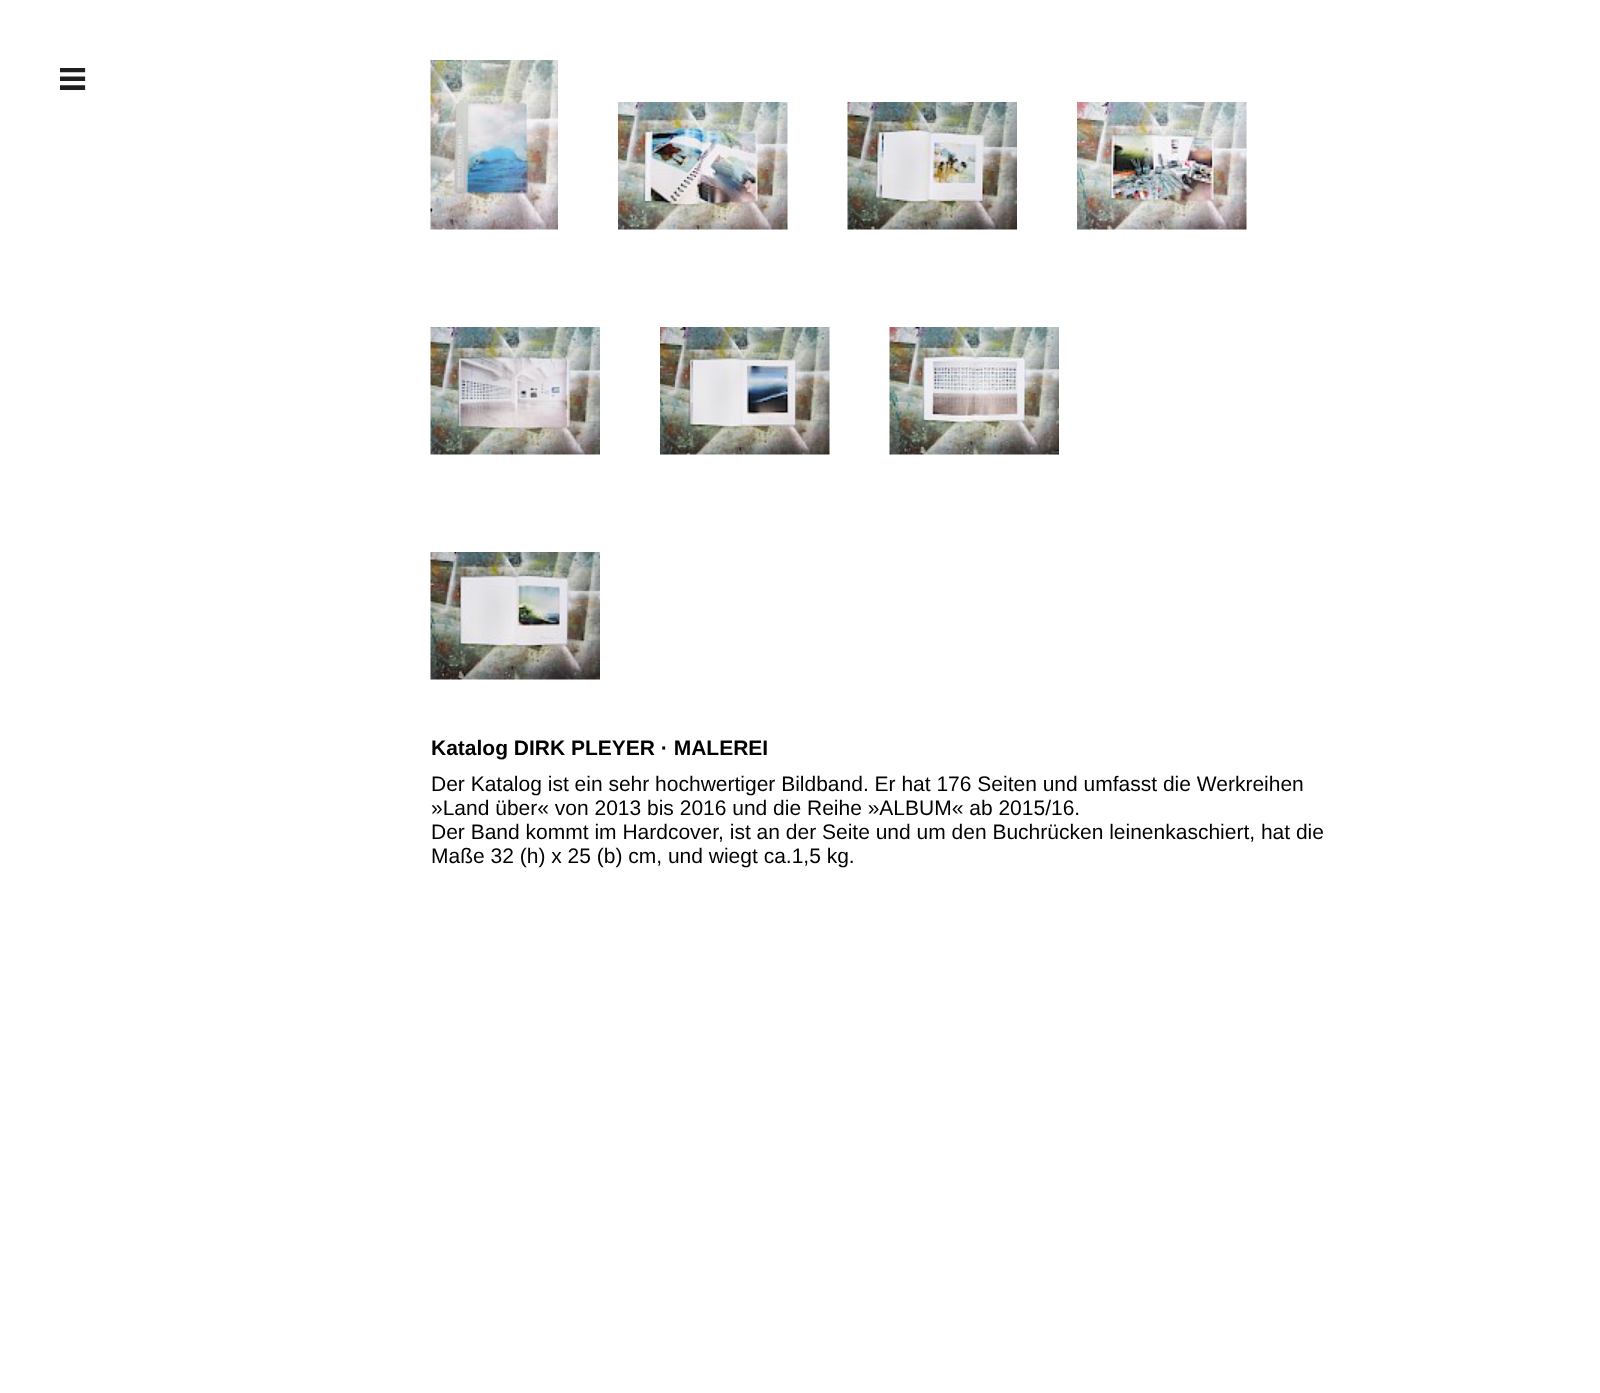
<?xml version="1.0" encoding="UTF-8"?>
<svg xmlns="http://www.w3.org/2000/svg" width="1600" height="1393">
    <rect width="100%" height="100%" fill="#FFFFFF"/>
    <image x="60" y="68" width="26" height="22" href="img_01.png"/>
    <image x="430" y="60" width="128" height="170" href="img_02.png"/>
    <image x="618" y="102" width="170" height="128" href="img_03.png"/>
    <image x="847" y="102" width="170" height="128" href="img_04.png"/>
    <image x="1077" y="102" width="170" height="128" href="img_05.png"/>
    <image x="430" y="327" width="170" height="128" href="img_06.png"/>
    <image x="660" y="327" width="170" height="128" href="img_07.png"/>
    <image x="889" y="327" width="170" height="128" href="img_08.png"/>
    <image x="430" y="552" width="170" height="128" href="img_09.png"/>
    <text x="431" y="755" font-family="Liberation Sans" font-size="21" font-weight="700" fill="#000000">Katalog DIRK PLEYER · MALEREI</text>
    <text font-family="Liberation Sans" font-size="21" fill="#000000">
        <tspan x="431" y="791">Der Katalog ist ein sehr hochwertiger Bildband. Er hat 176 Seiten und umfasst die Werkreihen</tspan>
        <tspan x="431" y="815">»Land über« von 2013 bis 2016 und die Reihe »ALBUM« ab 2015/16.</tspan>
        <tspan x="431" y="839">Der Band kommt im Hardcover, ist an der Seite und um den Buchrücken leinenkaschiert, hat die</tspan>
        <tspan x="431" y="863">Maße 32 (h) x 25 (b) cm, und wiegt ca.1,5 kg.</tspan>
    </text>
</svg>
